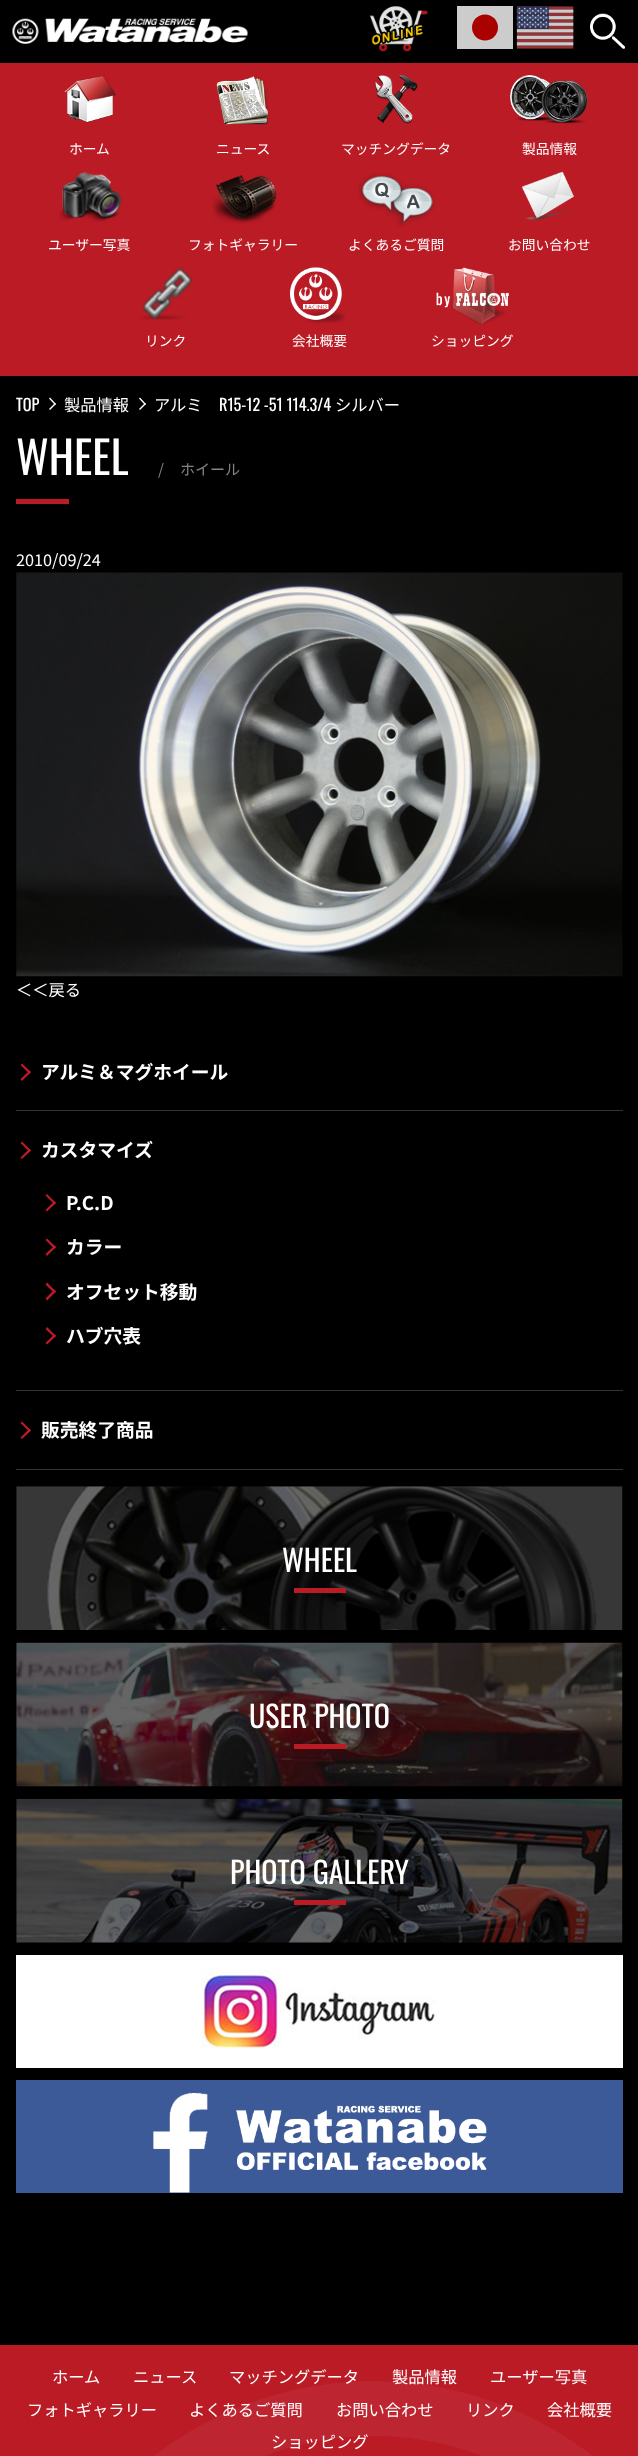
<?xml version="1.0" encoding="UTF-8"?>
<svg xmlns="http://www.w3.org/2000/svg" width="638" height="2456">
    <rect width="100%" height="100%" fill="#000000"/>
    <image x="12" y="18" width="236" height="26" href="img_01.png"/>
    <image x="370" y="6" width="58" height="46" href="img_02.png"/>
    <rect x="457" y="6" width="56" height="43" fill="#CCCCCC"/>
    <image x="516" y="6" width="58" height="43" href="img_03.png"/>
    <circle cx="485" cy="27.5" r="13" fill="#A90000"/>
    <image x="590" y="13" width="35" height="36" href="img_04.png"/>
    <rect x="0" y="63" width="638" height="313" fill="#BA1B25"/>
    <image x="64" y="75" width="52" height="48" href="img_05.png"/>
    <text x="69" y="154" font-family="Noto Sans JP" font-size="13.75" fill="#FFFFFF">ホーム</text>
    <image x="216" y="76" width="53" height="49" href="img_06.png"/>
    <text x="216" y="154" font-family="Noto Sans JP" font-size="13.75" fill="#FFFFFF">ニュース</text>
    <image x="375" y="75" width="43" height="49" href="img_07.png"/>
    <text x="341" y="154" font-family="Noto Sans JP" font-size="13.75" fill="#FFFFFF">マッチングデータ</text>
    <image x="510" y="75" width="78" height="49" href="img_08.png"/>
    <text x="522" y="154" font-family="Noto Sans JP" font-size="13.75" fill="#FFFFFF">製品情報</text>
    <image x="59" y="172" width="63" height="50" href="img_09.png"/>
    <text x="48" y="250" font-family="Noto Sans JP" font-size="13.75" fill="#FFFFFF">ユーザー写真</text>
    <image x="212" y="175" width="65" height="49" href="img_10.png"/>
    <text x="188" y="250" font-family="Noto Sans JP" font-size="13.75" fill="#FFFFFF">フォトギャラリー</text>
    <image x="358" y="173" width="77" height="54" href="img_11.png"/>
    <text x="348" y="250" font-family="Noto Sans JP" font-size="13.75" fill="#FFFFFF">よくあるご質問</text>
    <image x="521" y="171" width="54" height="50" href="img_12.png"/>
    <text x="508" y="250" font-family="Noto Sans JP" font-size="13.75" fill="#FFFFFF">お問い合わせ</text>
    <image x="140" y="267" width="53" height="53" href="img_13.png"/>
    <text x="145" y="346" font-family="Noto Sans JP" font-size="13.75" fill="#FFFFFF">リンク</text>
    <image x="290" y="267" width="55" height="57" href="img_14.png"/>
    <text x="292" y="346" font-family="Noto Sans JP" font-size="13.75" fill="#FFFFFF">会社概要</text>
    <image x="436" y="267" width="73" height="58" href="img_15.png"/>
    <text x="431" y="346" font-family="Noto Sans JP" font-size="13.75" fill="#FFFFFF">ショッピング</text>
    <text x="16" y="411" font-family="Oswald" font-size="16.25" fill="#FFFFFF">TOP</text>
    <path d="M 50 397.5 L 56 404 L 55 405 L 49 398.5 Z" fill="#FFFFFF"/>
    <path d="M 55 403 L 56 404 L 50 410 L 49 409 Z" fill="#FFFFFF"/>
    <text x="64" y="411" font-family="Noto Sans JP" font-size="16.25" fill="#FFFFFF">製品情報</text>
    <path d="M 140 397.5 L 146 404 L 145 405 L 139 398.5 Z" fill="#FFFFFF"/>
    <path d="M 145 403 L 146 404 L 140 410 L 139 409 Z" fill="#FFFFFF"/>
    <text x="154" y="411" font-family="Noto Sans JP" font-size="16.25" fill="#FFFFFF">アルミ</text>
    <text x="219" y="411" font-family="Oswald" font-size="16.25" fill="#FFFFFF">R15-12 -51 114.3/4</text>
    <text x="335" y="411" font-family="Noto Sans JP" font-size="16.25" fill="#FFFFFF">シルバー</text>
    <text x="16" y="475" font-family="Oswald" font-size="45" fill="#FFFFFF">WHEEL</text>
    <rect x="16" y="499" width="53" height="5" fill="#BA1B25"/>
    <text x="158" y="475" font-family="Noto Sans JP" font-size="15" fill="#858484">/</text>
    <text x="180" y="475" font-family="Noto Sans JP" font-size="15" fill="#858484">ホイール</text>
    <text x="16" y="566" font-family="Noto Sans JP" font-size="16.25" fill="#FFFFFF">2010/09/24</text>
    <image x="16" y="572" width="607" height="405" href="img_16.png"/>
    <text x="16" y="996" font-family="Noto Sans JP" font-size="16.25" fill="#FFFFFF">＜＜戻る</text>
    <rect x="16" y="1110" width="607" height="1" fill="#333333"/>
    <path d="M 22 1063.5 L 31 1072 L 29.5 1074 L 20.5 1065 Z" fill="#BA1B25"/>
    <path d="M 29.5 1070.5 L 31 1072 L 22 1081 L 20.5 1079 Z" fill="#BA1B25"/>
    <text x="41" y="1079" font-family="Noto Sans JP" font-size="18.75" font-weight="700" fill="#FFFFFF">アルミ＆マグホイール</text>
    <rect x="16" y="1390" width="607" height="1" fill="#333333"/>
    <path d="M 22 1141.5 L 31 1150.5 L 29.5 1152 L 20.5 1143 Z" fill="#BA1B25"/>
    <path d="M 29.5 1148.5 L 31 1150.5 L 22 1159 L 20.5 1157.5 Z" fill="#BA1B25"/>
    <text x="41" y="1157" font-family="Noto Sans JP" font-size="18.75" font-weight="700" fill="#FFFFFF">カスタマイズ</text>
    <path d="M 47 1194 L 56 1203 L 54.5 1204.5 L 45.5 1195.5 Z" fill="#BA1B25"/>
    <path d="M 54.5 1201 L 56 1203 L 47 1211.5 L 45.5 1210 Z" fill="#BA1B25"/>
    <text x="66" y="1210" font-family="Noto Sans JP" font-size="18.75" font-weight="700" fill="#FFFFFF">P.C.D</text>
    <path d="M 47 1238.5 L 56 1247 L 54.5 1249 L 45.5 1240 Z" fill="#BA1B25"/>
    <path d="M 54.5 1245.5 L 56 1247 L 47 1256 L 45.5 1254 Z" fill="#BA1B25"/>
    <text x="66" y="1254" font-family="Noto Sans JP" font-size="18.75" font-weight="700" fill="#FFFFFF">カラー</text>
    <path d="M 47 1282.5 L 56 1291.5 L 54.5 1293.5 L 45.5 1284.5 Z" fill="#BA1B25"/>
    <path d="M 54.5 1289.5 L 56 1291.5 L 47 1300.5 L 45.5 1298.5 Z" fill="#BA1B25"/>
    <text x="66" y="1299" font-family="Noto Sans JP" font-size="18.75" font-weight="700" fill="#FFFFFF">オフセット移動</text>
    <path d="M 47 1327 L 56 1336 L 54.5 1337.5 L 45.5 1329 Z" fill="#BA1B25"/>
    <path d="M 54.5 1334 L 56 1336 L 47 1344.5 L 45.5 1343 Z" fill="#BA1B25"/>
    <text x="66" y="1343" font-family="Noto Sans JP" font-size="18.75" font-weight="700" fill="#FFFFFF">ハブ穴表</text>
    <rect x="16" y="1469" width="607" height="1" fill="#333333"/>
    <path d="M 22 1421.5 L 31 1430.5 L 29.5 1432 L 20.5 1423 Z" fill="#BA1B25"/>
    <path d="M 29.5 1428.5 L 31 1430.5 L 22 1439 L 20.5 1437.5 Z" fill="#BA1B25"/>
    <text x="41" y="1437" font-family="Noto Sans JP" font-size="18.75" font-weight="700" fill="#FFFFFF">販売終了商品</text>
    <image x="16" y="1486" width="607" height="144" href="img_17.png"/>
    <text x="282" y="1572" font-family="Oswald" font-size="30" fill="#FFFFFF">WHEEL</text>
    <rect x="294" y="1588" width="52" height="5" fill="#BA1B25"/>
    <image x="16" y="1642" width="607" height="145" href="img_18.png"/>
    <text x="249" y="1728" font-family="Oswald" font-size="30" fill="#FFFFFF">USER PHOTO</text>
    <rect x="294" y="1744" width="52" height="5" fill="#BA1B25"/>
    <image x="16" y="1798" width="607" height="145" href="img_19.png"/>
    <text x="230" y="1884" font-family="Oswald" font-size="30" fill="#FFFFFF">PHOTO GALLERY</text>
    <rect x="294" y="1900" width="52" height="5" fill="#BA1B25"/>
    <rect x="16" y="1955" width="607" height="113" fill="#FFFFFF"/>
    <image x="201" y="1970" width="235" height="78" href="img_20.png"/>
    <rect x="16" y="2080" width="607" height="113" fill="#3C5998"/>
    <image x="153" y="2092" width="334" height="101" href="img_21.png"/>
    <rect x="0" y="2345" width="638" height="111" fill="#BA1B25"/>
    <image x="155" y="2381" width="437" height="75" href="img_22.png"/>
    <text x="52" y="2383" font-family="Noto Sans JP" font-size="16.25" fill="#FFFFFF">ホーム</text>
    <text x="133" y="2383" font-family="Noto Sans JP" font-size="16.25" fill="#FFFFFF">ニュース</text>
    <text x="229" y="2383" font-family="Noto Sans JP" font-size="16.25" fill="#FFFFFF">マッチングデータ</text>
    <text x="392" y="2383" font-family="Noto Sans JP" font-size="16.25" fill="#FFFFFF">製品情報</text>
    <text x="490" y="2383" font-family="Noto Sans JP" font-size="16.25" fill="#FFFFFF">ユーザー写真</text>
    <text x="27" y="2416" font-family="Noto Sans JP" font-size="16.25" fill="#FFFFFF">フォトギャラリー</text>
    <text x="189" y="2416" font-family="Noto Sans JP" font-size="16.25" fill="#FFFFFF">よくあるご質問</text>
    <text x="336" y="2416" font-family="Noto Sans JP" font-size="16.25" fill="#FFFFFF">お問い合わせ</text>
    <text x="466" y="2416" font-family="Noto Sans JP" font-size="16.25" fill="#FFFFFF">リンク</text>
    <text x="547" y="2416" font-family="Noto Sans JP" font-size="16.25" fill="#FFFFFF">会社概要</text>
    <text x="271" y="2448" font-family="Noto Sans JP" font-size="16.25" fill="#FFFFFF">ショッピング</text>
</svg>
